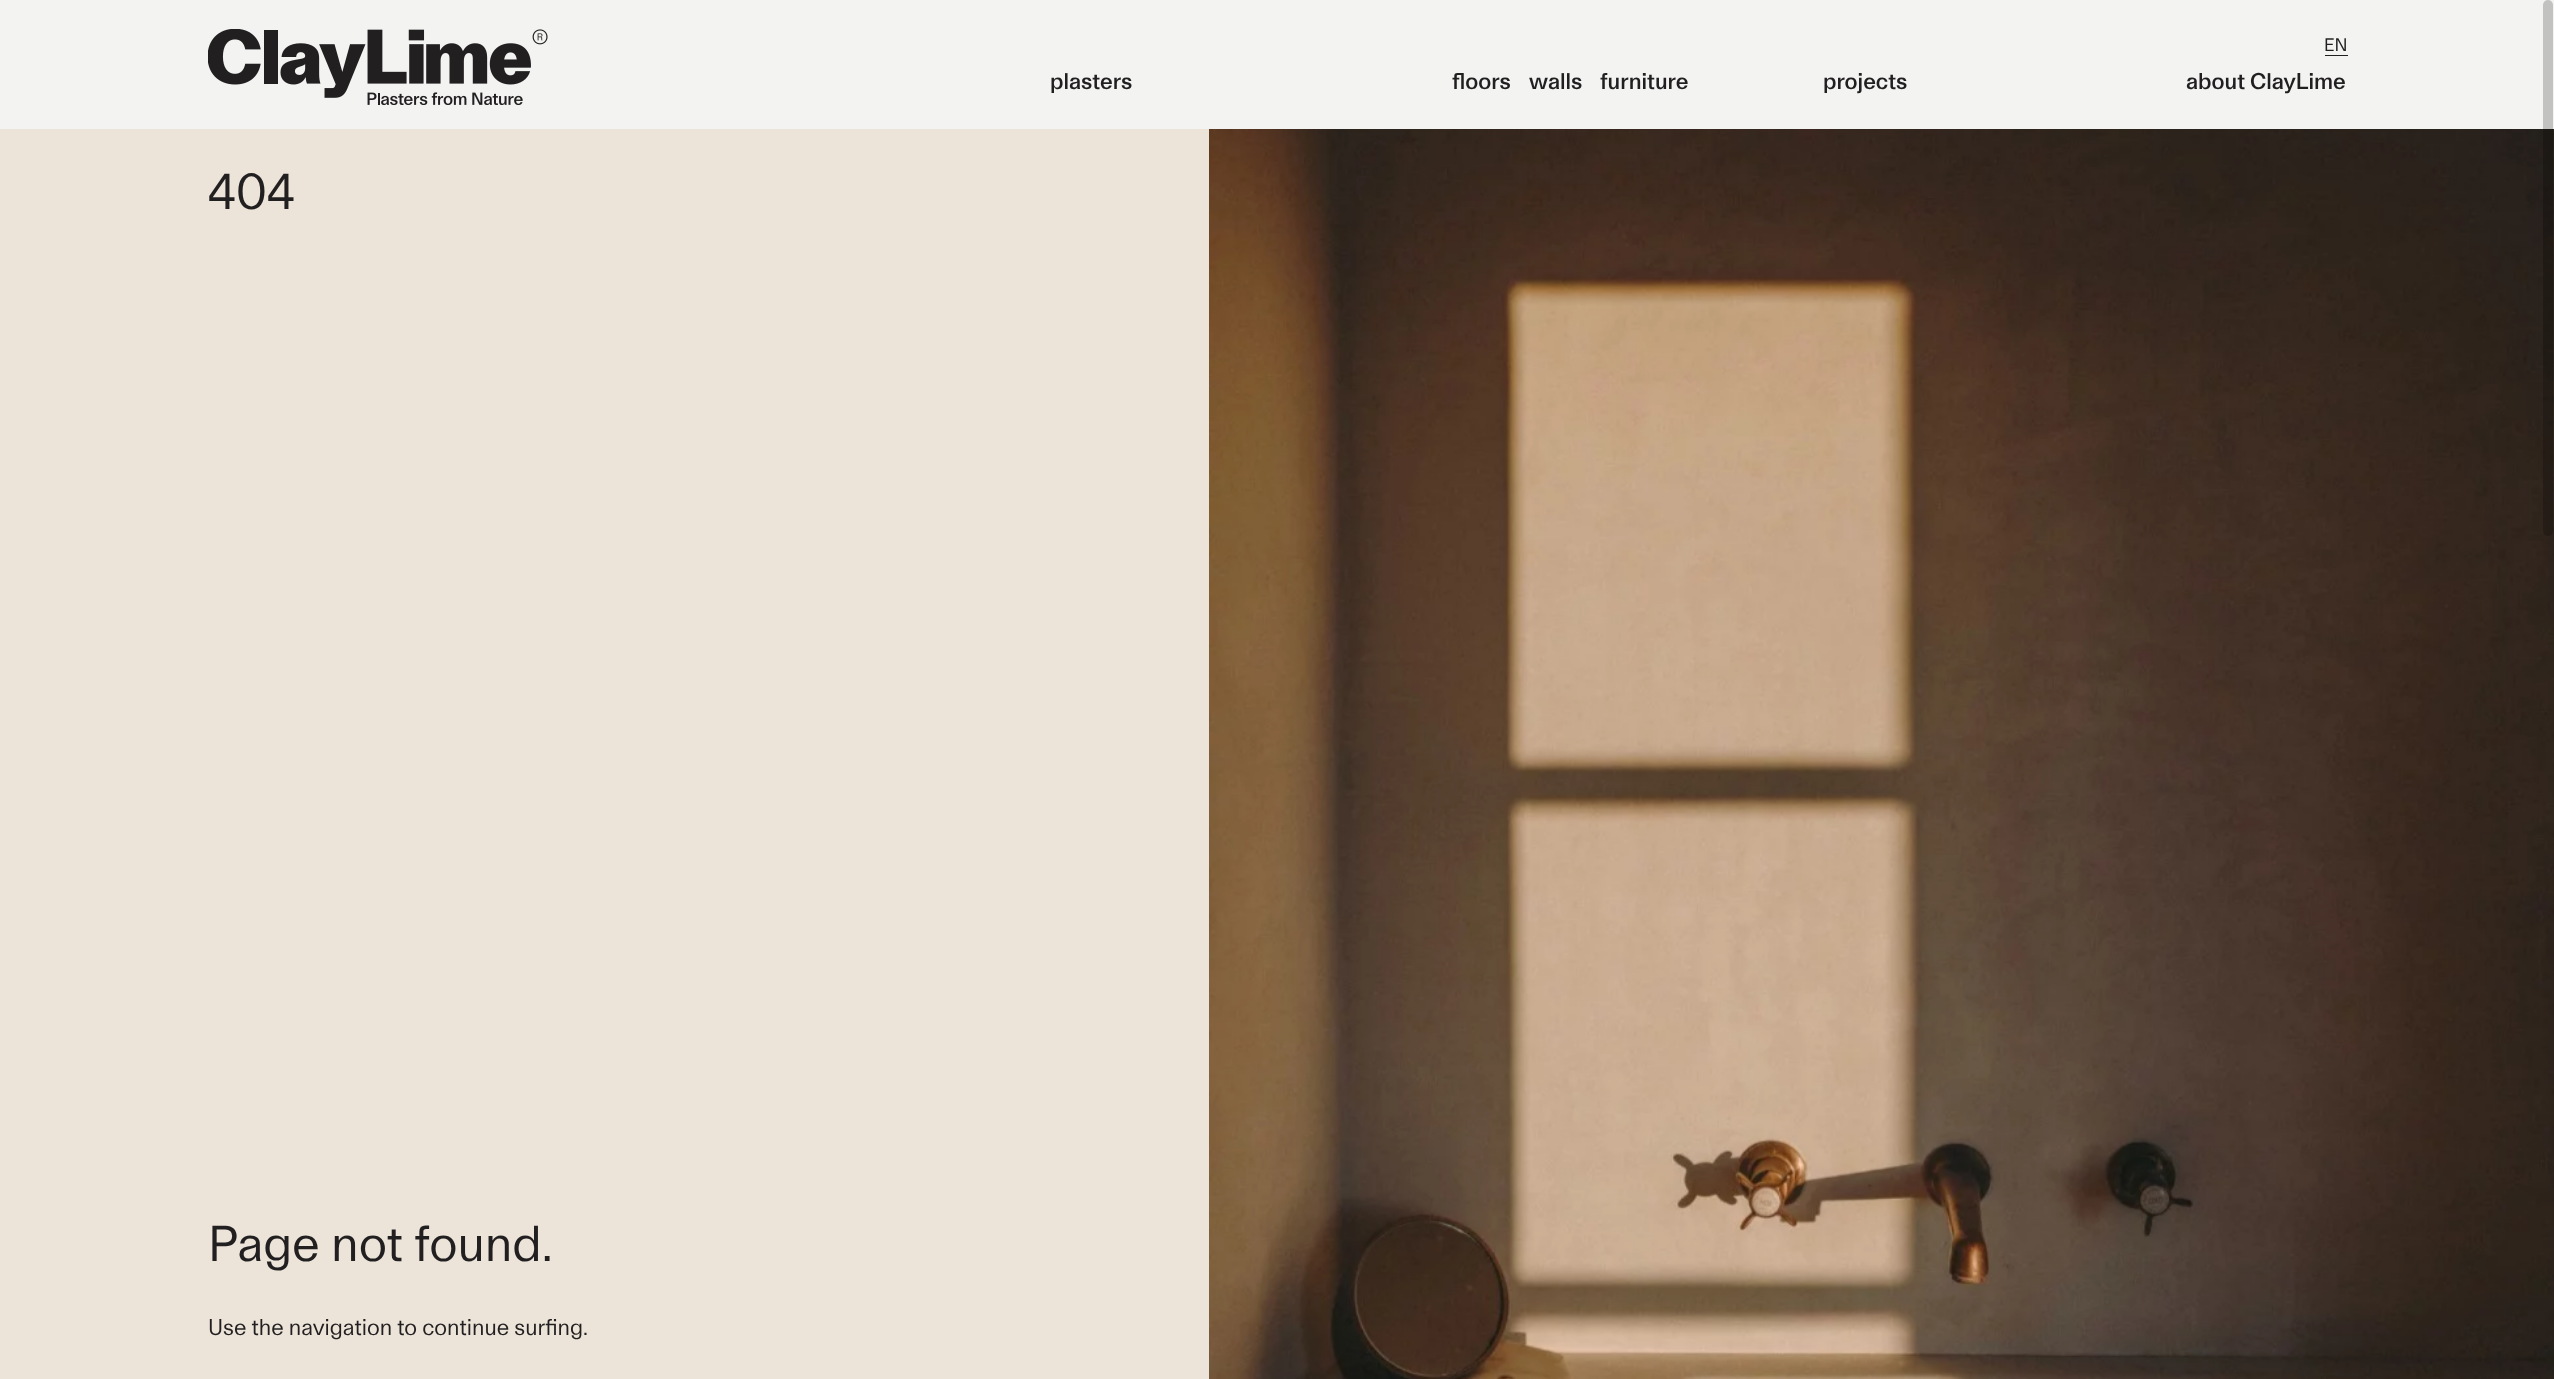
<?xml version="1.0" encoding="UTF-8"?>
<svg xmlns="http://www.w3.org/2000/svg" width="2554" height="1379">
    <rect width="100%" height="100%" fill="#ECE3D9"/>
    <rect x="0" y="0" width="2554" height="129" fill="#F3F3F2"/>
    <image x="208" y="29" width="340" height="76" href="img_01.png"/>
    <rect x="2325" y="55" width="23" height="1" fill="#211F20"/>
    <text x="2324" y="51" font-family="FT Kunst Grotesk" font-size="18" fill="#211F20">EN</text>
    <text x="1050" y="89" font-family="FT Kunst Grotesk" font-size="22.5" font-weight="500" fill="#211F20">plasters</text>
    <text x="1452" y="89" font-family="FT Kunst Grotesk" font-size="22.5" font-weight="500" fill="#211F20">floors</text>
    <text x="1529" y="89" font-family="FT Kunst Grotesk" font-size="22.5" font-weight="500" fill="#211F20">walls</text>
    <text x="1600" y="89" font-family="FT Kunst Grotesk" font-size="22.5" font-weight="500" fill="#211F20">furniture</text>
    <text x="1823" y="89" font-family="FT Kunst Grotesk" font-size="22.5" font-weight="500" fill="#211F20">projects</text>
    <text x="2186" y="89" font-family="FT Kunst Grotesk" font-size="22.5" font-weight="500" fill="#211F20">about ClayLime</text>
    <image x="1209" y="129" width="1345" height="1250" href="img_02.png"/>
    <rect x="2543" y="0" width="10" height="536" rx="5" fill="#000000" fill-opacity="0.2"/>
    <text x="208" y="209" font-family="FT Kunst Grotesk" font-size="50" fill="#211F20">404</text>
    <text x="208" y="1261" font-family="FT Kunst Grotesk" font-size="50" fill="#211F20">Page not found.</text>
    <text x="208" y="1335" font-family="FT Kunst Grotesk" font-size="22.5" fill="#211F20">Use the navigation to continue surfing.</text>
</svg>
